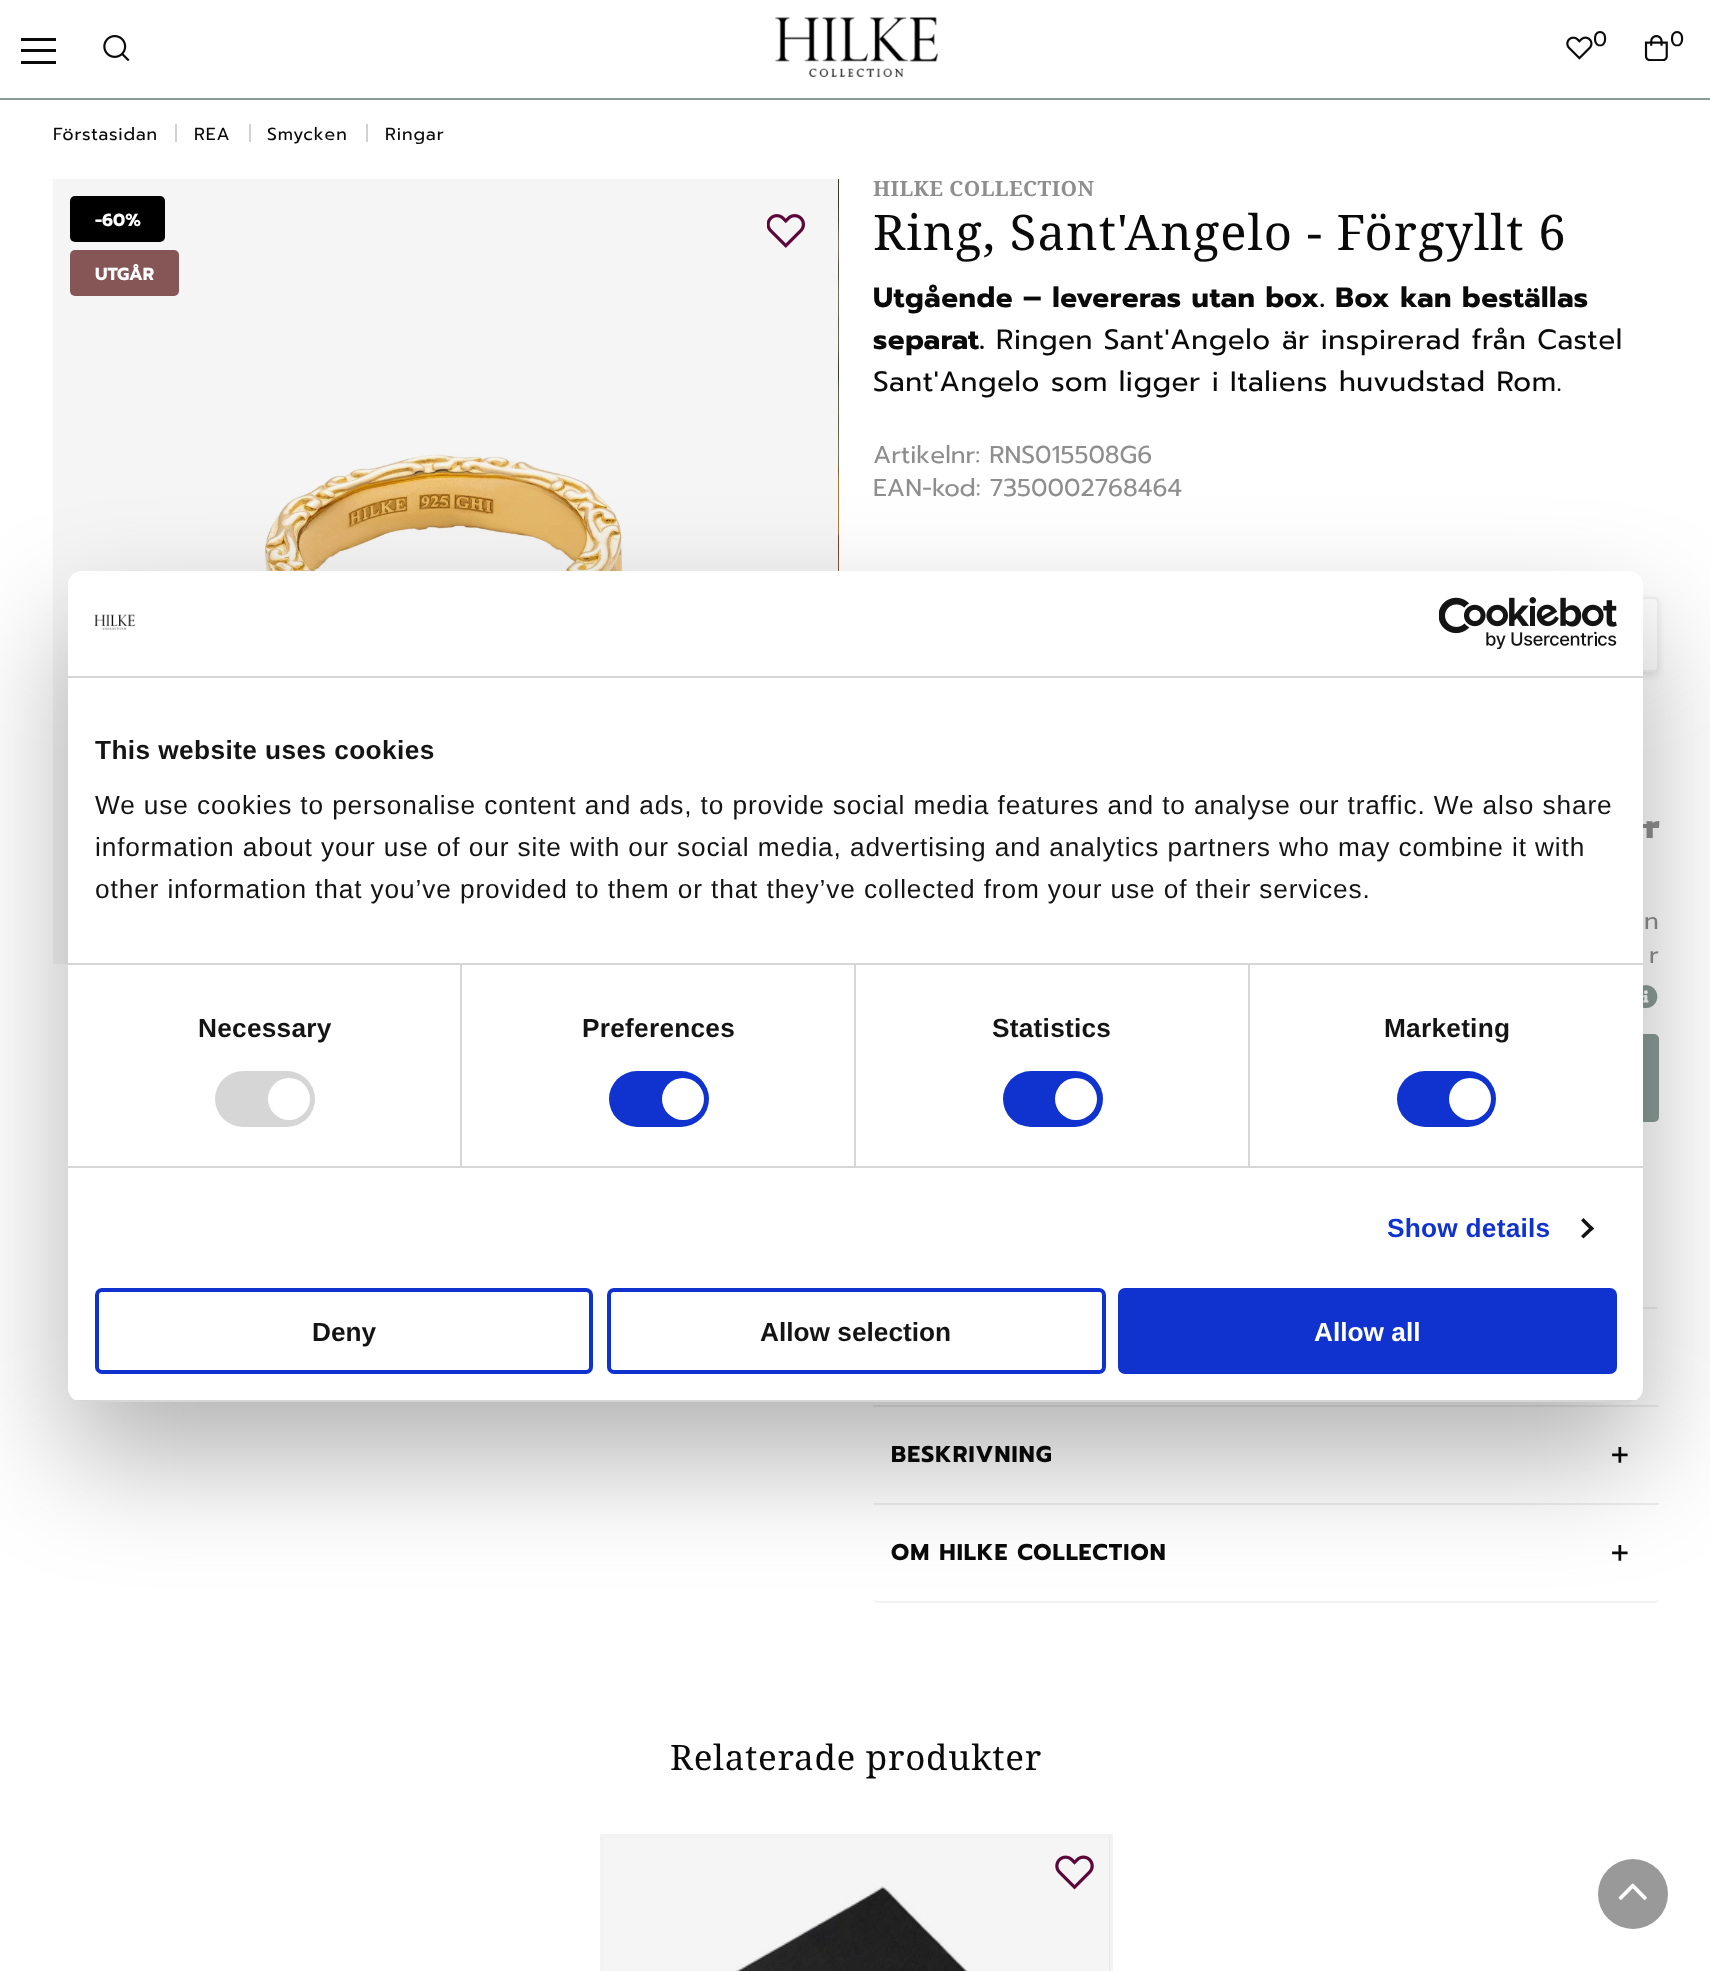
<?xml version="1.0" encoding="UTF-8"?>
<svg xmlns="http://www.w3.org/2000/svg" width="1710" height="1971">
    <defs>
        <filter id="blur1" x="-50%" y="-200%" width="200%" height="500%"><feGaussianBlur stdDeviation="3.5"/></filter>
        <filter id="blur2" x="-50%" y="-200%" width="200%" height="500%"><feGaussianBlur stdDeviation="59.5"/></filter>
        <clipPath id="clip1"><rect x="68" y="571" width="1575" height="831" rx="14"/></clipPath>
    </defs>
    <rect width="100%" height="100%" fill="#FFFFFF"/>
    <rect x="53" y="179" width="785" height="785" fill="#F5F5F5"/>
    <rect x="21" y="49" width="35" height="3" fill="#0A0A0A"/>
    <rect x="21" y="38" width="35" height="3" fill="#0A0A0A"/>
    <rect x="21" y="61" width="35" height="3" fill="#0A0A0A"/>
    <image x="103" y="35" width="27" height="26" href="img_01.png"/>
    <image x="775" y="17" width="163" height="60" href="img_02.png"/>
    <image x="1566" y="36" width="27" height="24" href="img_03.png"/>
    <text x="1593" y="46" font-family="Prompt" font-size="21" fill="#0A0A0A">0</text>
    <image x="1644" y="35" width="24" height="26" href="img_04.png"/>
    <text x="1670" y="46" font-family="Prompt" font-size="21" fill="#0A0A0A">0</text>
    <rect x="0" y="98" width="1710" height="2" fill="#8B9C97"/>
    <text x="53" y="140" font-family="Prompt" font-size="17.5" letter-spacing="0.88" fill="#0A0A0A">Förstasidan</text>
    <rect x="175" y="124" width="2" height="18" fill="#D2D2D2"/>
    <text x="194" y="140" font-family="Prompt" font-size="17.5" letter-spacing="0.88" fill="#0A0A0A">REA</text>
    <rect x="249" y="124" width="2" height="18" fill="#D2D2D2"/>
    <text x="267" y="140" font-family="Prompt" font-size="17.5" letter-spacing="0.88" fill="#0A0A0A">Smycken</text>
    <rect x="366" y="124" width="2" height="18" fill="#D2D2D2"/>
    <text x="385" y="140" font-family="Prompt" font-size="17.5" letter-spacing="0.88" fill="#0A0A0A">Ringar</text>
    <rect x="70" y="196" width="95" height="46" rx="5" fill="#000000"/>
    <text x="95" y="226" font-family="Prompt" font-size="17.5" font-weight="700" fill="#FFFFFF">-60%</text>
    <rect x="70" y="250" width="109" height="46" rx="5" fill="#865656"/>
    <text x="95" y="280" font-family="Prompt" font-size="17.5" font-weight="700" fill="#FFFFFF">UTGÅR</text>
    <image x="264" y="454" width="359" height="117" href="img_05.png"/>
    <image x="838" y="179" width="1" height="392" href="img_06.png"/>
    <image x="767" y="214" width="38" height="34" href="img_07.png"/>
    <text x="873" y="196" font-family="Noto Serif" font-size="21" font-weight="700" letter-spacing="0.4" fill="#8E8E8E">HILKE COLLECTION</text>
    <text x="873" y="250" font-family="Noto Serif" font-size="49" letter-spacing="1" fill="#0A0A0A">Ring, Sant'Angelo - Förgyllt 6</text>
    <text font-family="Prompt" font-size="28" font-weight="700" letter-spacing="0.55" fill="#0A0A0A">
        <tspan x="873" y="307">Utgående – levereras utan box. Box kan beställas</tspan>
        <tspan x="873" y="349">separat.</tspan>
    </text>
    <text x="996" y="349" font-family="Prompt" font-size="28" letter-spacing="0.55" fill="#0A0A0A">Ringen Sant'Angelo är inspirerad från Castel</text>
    <text x="873" y="391" font-family="Prompt" font-size="28" letter-spacing="0.55" fill="#0A0A0A">Sant'Angelo som ligger i Italiens huvudstad Rom.</text>
    <text font-family="Prompt" font-size="24.5" fill="#8E8E8E">
        <tspan x="873" y="463">Artikelnr: RNS015508G6</tspan>
        <tspan x="873" y="496">EAN-kod: 7350002768464</tspan>
    </text>
    <rect x="873" y="600" width="786" height="76" rx="5" fill="#E2E2E2" fill-opacity="0.84" filter="url(#blur1)"/>
    <rect x="874" y="598" width="784" height="73" rx="4" fill="#FFFFFF" stroke="#F2F2F2" stroke-width="2"/>
    <text x="1645" y="838" font-family="Prompt" font-size="35" font-weight="700" fill="#8E8E8E">r</text>
    <rect x="1643" y="824" width="16" height="4" fill="#8E8E8E"/>
    <text x="1644" y="929" font-family="Prompt" font-size="24.5" fill="#8E8E8E">n</text>
    <text x="1649" y="963" font-family="Prompt" font-size="24.5" fill="#8E8E8E">r</text>
    <image x="1643" y="985" width="15" height="24" href="img_08.png"/>
    <rect x="1040" y="1034" width="619" height="88" rx="5" fill="#8B9C97"/>
    <rect x="1643" y="1307" width="14" height="2" fill="#EFEEEE"/>
    <rect x="873" y="1405" width="786" height="2" fill="#EFEEEE"/>
    <text x="891" y="1462" font-family="Prompt" font-size="22.75" font-weight="700" letter-spacing="1.1" fill="#0A0A0A">BESKRIVNING</text>
    <text x="1610" y="1463" font-family="Jost" font-size="32" letter-spacing="1.1" fill="#0A0A0A">+</text>
    <rect x="873" y="1503" width="786" height="2" fill="#EFEEEE"/>
    <path d="M 873 1599 C 874 1600 876 1601 878 1601 H 1654 C 1657 1601 1659 1600 1659 1598 C 1659 1601 1657 1603 1654 1603 H 878 C 876 1603 874 1602 873 1599 Z" fill="#F2F2F2"/>
    <text x="891" y="1560" font-family="Prompt" font-size="22.75" font-weight="700" letter-spacing="1.1" fill="#0A0A0A">OM HILKE COLLECTION</text>
    <text x="1610" y="1561" font-family="Jost" font-size="32" letter-spacing="1.1" fill="#0A0A0A">+</text>
    <text x="670" y="1770" font-family="Noto Serif" font-size="35" letter-spacing="0.7" fill="#0A0A0A">Relaterade produkter</text>
    <rect x="602" y="1836" width="509" height="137" fill="none" stroke="#F2F2F2" stroke-width="4"/>
    <image x="736" y="1886" width="233" height="85" href="img_10.png"/>
    <rect x="604" y="1838" width="506" height="133" fill="#000000" fill-opacity="0.04"/>
    <image x="1055" y="1855" width="39" height="35" href="img_09.png"/>
    <rect x="68" y="627" width="1575" height="831" rx="14" fill="#000000" fill-opacity="0.3" filter="url(#blur2)"/>
    <rect x="68" y="571" width="1575" height="831" rx="14" fill="#FFFFFF"/>
    <rect x="68" y="676" width="1575" height="2" fill="#D6D6D6"/>
    <image x="94" y="614" width="41" height="17" href="img_11.png"/>
    <image x="1439" y="597" width="178" height="52" href="img_12.png"/>
    <rect x="460" y="964" width="2" height="202" fill="#D6D6D6"/>
    <rect x="854" y="964" width="2" height="202" fill="#D6D6D6"/>
    <rect x="1248" y="964" width="2" height="202" fill="#D6D6D6"/>
    <rect x="68" y="963" width="1575" height="2" fill="#D6D6D6"/>
    <text x="95" y="759" font-family="Liberation Sans" font-size="26.25" font-weight="700" letter-spacing="0.4" fill="#141414">This website uses cookies</text>
    <text font-family="Liberation Sans" font-size="26.25" letter-spacing="0.88" fill="#141414">
        <tspan x="95" y="814">We use cookies to personalise content and ads, to provide social media features and to analyse our traffic. We also share</tspan>
        <tspan x="95" y="856">information about your use of our site with our social media, advertising and analytics partners who may combine it with</tspan>
        <tspan x="95" y="898">other information that you’ve provided to them or that they’ve collected from your use of their services.</tspan>
    </text>
    <rect x="68" y="1166" width="1575" height="2" fill="#D6D6D6"/>
    <text x="198" y="1037" font-family="Liberation Sans" font-size="26.25" font-weight="700" letter-spacing="0.25" fill="#141414">Necessary</text>
    <rect x="215" y="1071" width="100" height="56" rx="28" fill="#D6D6D6"/>
    <circle cx="289" cy="1099" r="21" fill="#FFFFFF"/>
    <text x="582" y="1037" font-family="Liberation Sans" font-size="26.25" font-weight="700" letter-spacing="0.25" fill="#141414">Preferences</text>
    <rect x="609" y="1071" width="100" height="56" rx="28" fill="#1032CF"/>
    <circle cx="683" cy="1099" r="21" fill="#FFFFFF"/>
    <text x="992" y="1037" font-family="Liberation Sans" font-size="26.25" font-weight="700" letter-spacing="0.25" fill="#141414">Statistics</text>
    <rect x="1003" y="1071" width="100" height="56" rx="28" fill="#1032CF"/>
    <circle cx="1076" cy="1099" r="21" fill="#FFFFFF"/>
    <text x="1384" y="1037" font-family="Liberation Sans" font-size="26.25" font-weight="700" letter-spacing="0.25" fill="#141414">Marketing</text>
    <rect x="1397" y="1071" width="99" height="56" rx="28" fill="#1032CF"/>
    <circle cx="1470" cy="1099" r="21" fill="#FFFFFF"/>
    <text x="1387" y="1237" font-family="Liberation Sans" font-size="26.25" font-weight="700" letter-spacing="0.25" fill="#1032CF">Show details</text>
    <path d="M 1583.5 1218 L 1594 1228.5 L 1591.5 1231 L 1581 1220.5 Z" fill="#141414"/>
    <path d="M 1591.5 1226 L 1594 1228.5 L 1583.5 1238.5 L 1581 1236 Z" fill="#141414"/>
    <g clip-path="url(#clip1)">
        <rect x="68" y="1400" width="1575" height="2" fill="#D6D6D6"/>
    </g>
    <rect x="97" y="1290" width="494" height="82" rx="5" fill="none" stroke="#1032CF" stroke-width="4"/>
    <text x="312" y="1341" font-family="Liberation Sans" font-size="26.25" font-weight="700" fill="#141414">Deny</text>
    <rect x="609" y="1290" width="495" height="82" rx="5" fill="none" stroke="#1032CF" stroke-width="4"/>
    <text x="760" y="1341" font-family="Liberation Sans" font-size="26.25" font-weight="700" fill="#141414">Allow selection</text>
    <rect x="1120" y="1290" width="495" height="82" rx="5" fill="#1032CF" stroke="#1032CF" stroke-width="4"/>
    <text x="1314" y="1341" font-family="Liberation Sans" font-size="26.25" font-weight="700" fill="#FFFFFF">Allow all</text>
    <circle cx="1633" cy="1894" r="35" fill="#999999"/>
    <image x="1618" y="1883" width="29" height="17" href="img_13.png"/>
</svg>
